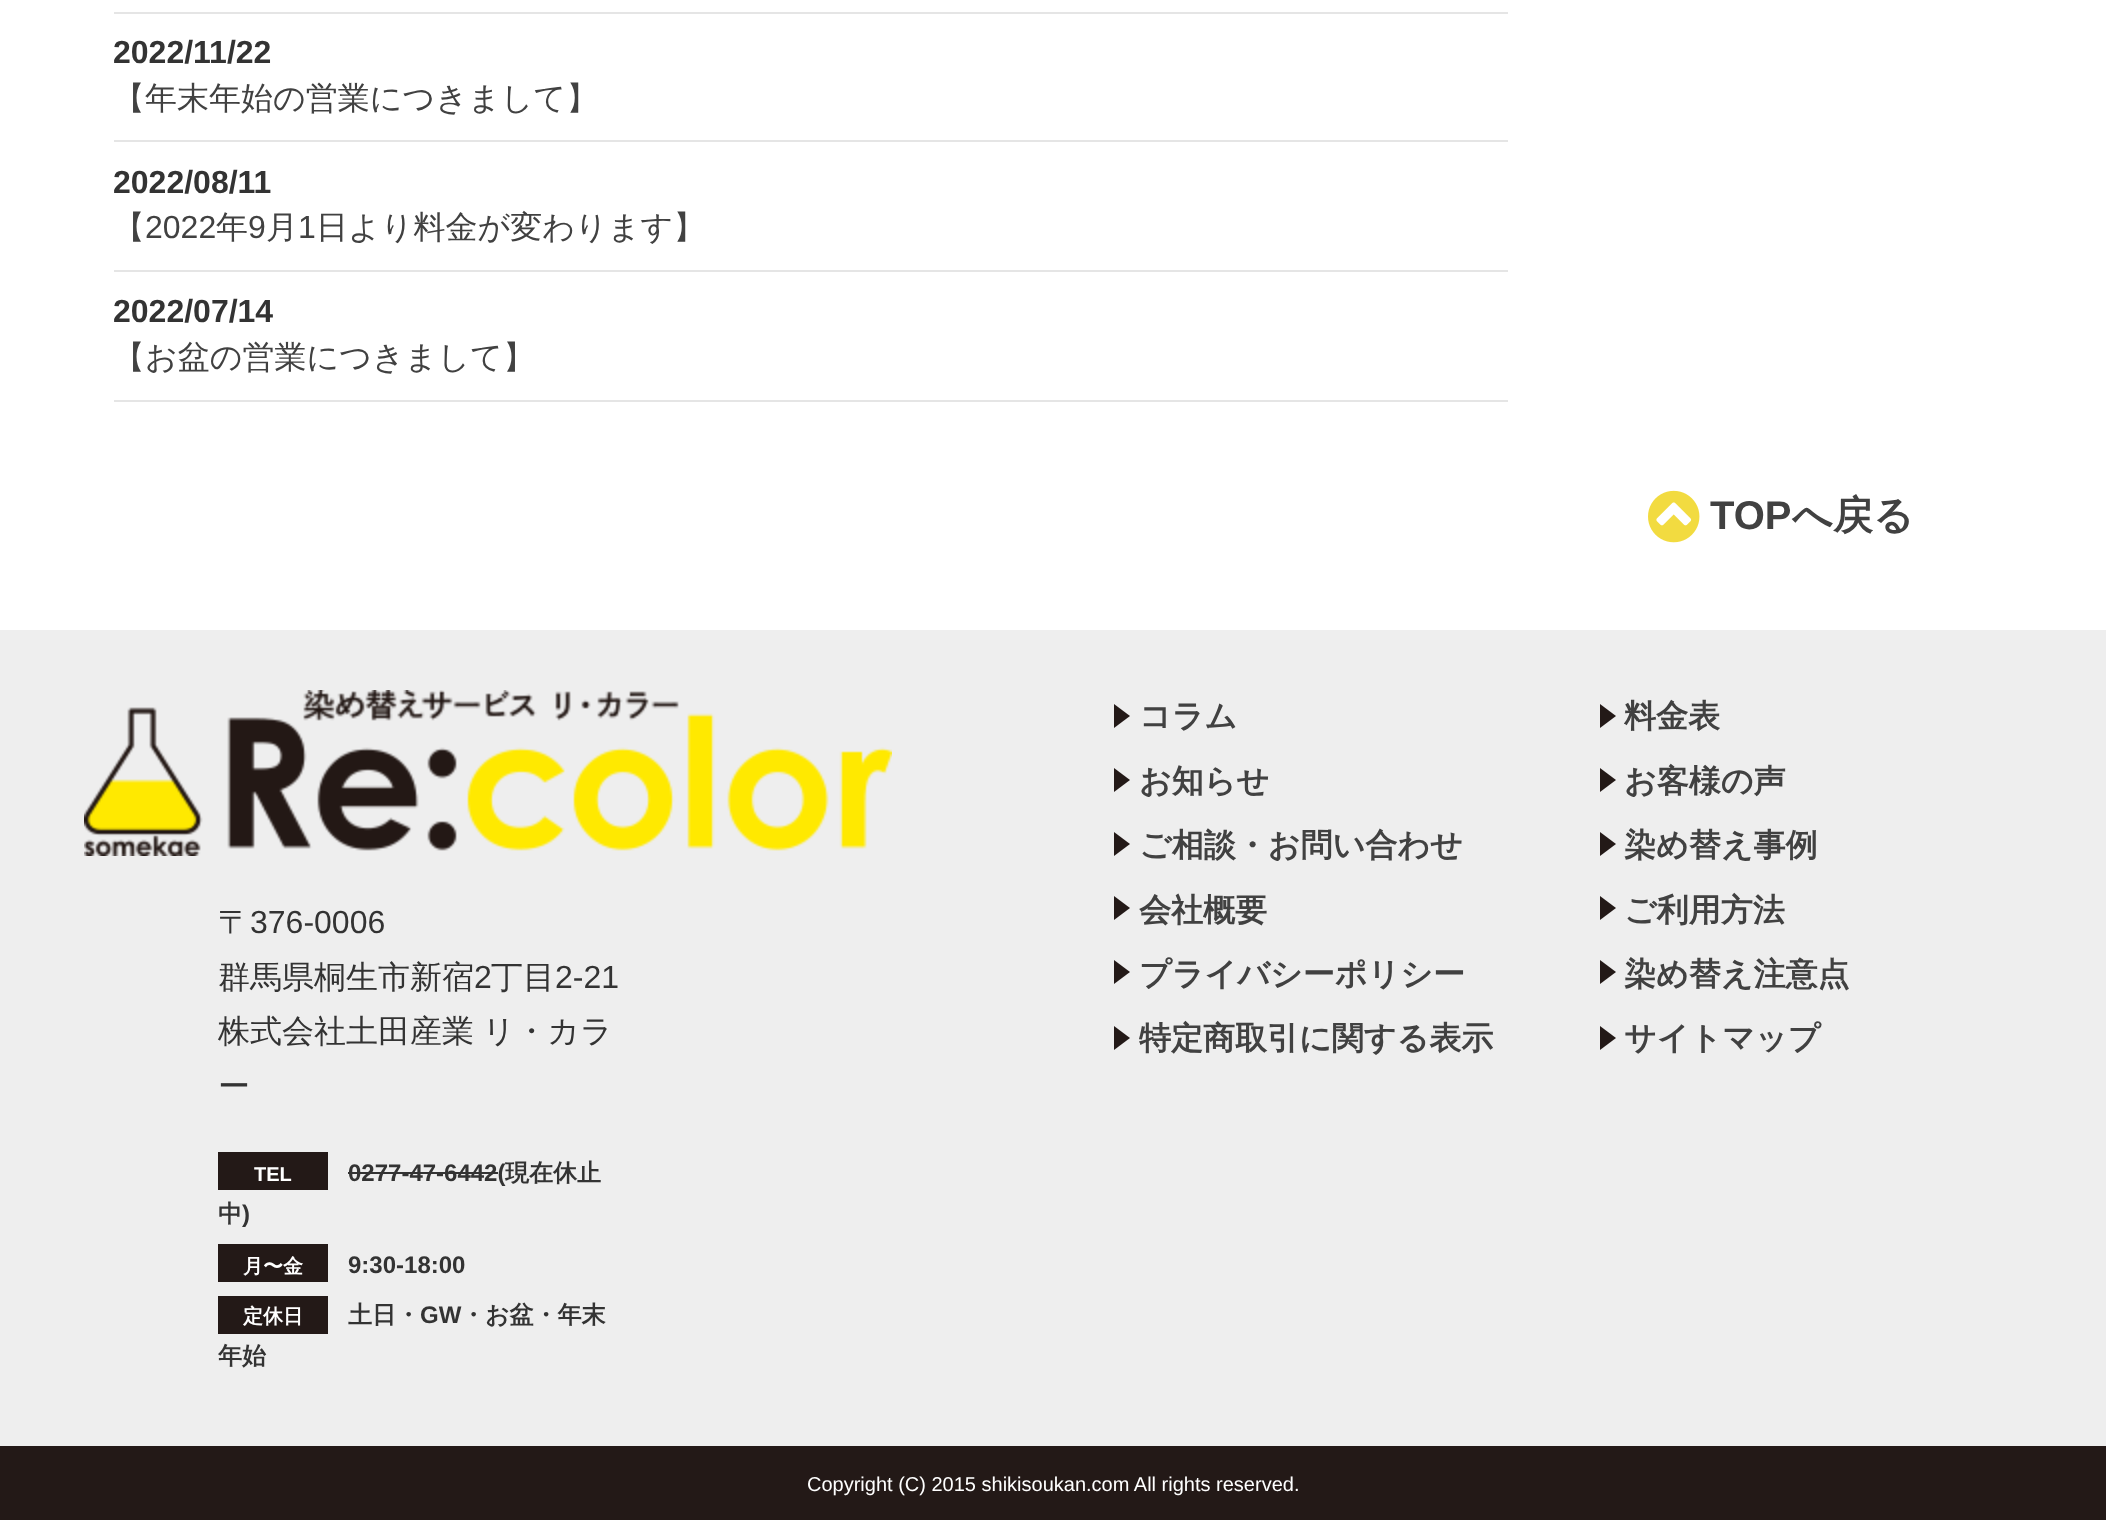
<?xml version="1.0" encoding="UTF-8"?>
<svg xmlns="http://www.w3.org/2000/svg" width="2106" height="1520">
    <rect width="100%" height="100%" fill="#FFFFFF"/>
    <rect x="114" y="12" width="1394" height="2" fill="#E5E5E5"/>
    <rect x="114" y="140" width="1394" height="2" fill="#E5E5E5"/>
    <text x="113" y="63" font-family="Liberation Sans" font-size="32" font-weight="700" fill="#333333">2022/11/22</text>
    <text x="113" y="109" font-family="WenQuanYi Zen Hei" font-size="32" font-weight="500" fill="#414141">【年末年始の営業につきまして】</text>
    <rect x="114" y="270" width="1394" height="2" fill="#E5E5E5"/>
    <text x="113" y="193" font-family="Liberation Sans" font-size="32" font-weight="700" fill="#333333">2022/08/11</text>
    <text x="113" y="238" font-family="WenQuanYi Zen Hei" font-size="32" font-weight="500" fill="#414141">【</text>
    <text x="145" y="238" font-family="Liberation Sans" font-size="32" fill="#414141">2022</text>
    <text x="216" y="238" font-family="WenQuanYi Zen Hei" font-size="32" font-weight="500" fill="#414141">年</text>
    <text x="248" y="238" font-family="Liberation Sans" font-size="32" fill="#414141">9</text>
    <text x="266" y="238" font-family="WenQuanYi Zen Hei" font-size="32" font-weight="500" fill="#414141">月</text>
    <text x="298" y="238" font-family="Liberation Sans" font-size="32" fill="#414141">1</text>
    <text x="316" y="238" font-family="WenQuanYi Zen Hei" font-size="32" font-weight="500" fill="#414141">日より料金が変わります】</text>
    <rect x="114" y="400" width="1394" height="2" fill="#E5E5E5"/>
    <text x="113" y="322" font-family="Liberation Sans" font-size="32" font-weight="700" fill="#333333">2022/07/14</text>
    <text x="113" y="368" font-family="WenQuanYi Zen Hei" font-size="32" font-weight="500" fill="#414141">【お盆の営業につきまして】</text>
    <image x="1648" y="490" width="52" height="53" href="img_01.png"/>
    <text x="1710" y="529" font-family="Liberation Sans" font-size="40" font-weight="700" fill="#414141">TOP</text>
    <text x="1792" y="529" font-family="WenQuanYi Zen Hei" font-size="40" font-weight="700" fill="#414141">へ戻る</text>
    <rect x="0" y="630" width="2106" height="816" fill="#EEEEEE"/>
    <image x="84" y="690" width="808" height="166" href="img_02.png"/>
    <text x="218" y="933" font-family="WenQuanYi Zen Hei" font-size="32" font-weight="500" fill="#333333">〒</text>
    <text x="250" y="933" font-family="Liberation Sans" font-size="32" fill="#333333">376-0006</text>
    <text x="218" y="988" font-family="WenQuanYi Zen Hei" font-size="32" font-weight="500" fill="#333333">群馬県桐生市新宿</text>
    <text x="474" y="988" font-family="Liberation Sans" font-size="32" fill="#333333">2</text>
    <text x="491" y="988" font-family="WenQuanYi Zen Hei" font-size="32" font-weight="500" fill="#333333">丁目</text>
    <text x="555" y="988" font-family="Liberation Sans" font-size="32" fill="#333333">2-21</text>
    <text font-family="WenQuanYi Zen Hei" font-size="32" font-weight="500" fill="#333333">
        <tspan x="218" y="1042" word-spacing="-1">株式会社土田産業 リ・カラ</tspan>
        <tspan x="218" y="1097">ー</tspan>
    </text>
    <rect x="218" y="1152" width="110" height="38" fill="#231917"/>
    <text x="254" y="1181" font-family="Liberation Sans" font-size="20" font-weight="700" fill="#FFFFFF">TEL</text>
    <text x="348" y="1181" font-family="Liberation Sans" font-size="24" font-weight="700" fill="#333333">0277-47-6442(</text>
    <rect x="348" y="1172" width="150" height="2" fill="#333333"/>
    <text x="505" y="1181" font-family="WenQuanYi Zen Hei" font-size="24" font-weight="700" fill="#333333">現在休止</text>
    <text x="218" y="1222" font-family="WenQuanYi Zen Hei" font-size="24" font-weight="700" fill="#333333">中</text>
    <text x="242" y="1222" font-family="Liberation Sans" font-size="24" font-weight="700" fill="#333333">)</text>
    <rect x="218" y="1244" width="110" height="38" fill="#231917"/>
    <text x="243" y="1273" font-family="WenQuanYi Zen Hei" font-size="20" font-weight="700" fill="#FFFFFF">月〜金</text>
    <text x="348" y="1273" font-family="Liberation Sans" font-size="24" font-weight="700" fill="#333333">9:30-18:00</text>
    <rect x="218" y="1296" width="110" height="38" fill="#231917"/>
    <text x="243" y="1323" font-family="WenQuanYi Zen Hei" font-size="20" font-weight="700" fill="#FFFFFF">定休日</text>
    <text x="348" y="1323" font-family="WenQuanYi Zen Hei" font-size="24" font-weight="700" fill="#333333">土日・</text>
    <text x="420" y="1323" font-family="Liberation Sans" font-size="24" font-weight="700" fill="#333333">GW</text>
    <text x="461" y="1323" font-family="WenQuanYi Zen Hei" font-size="24" font-weight="700" fill="#333333">・お盆・年末</text>
    <text x="218" y="1364" font-family="WenQuanYi Zen Hei" font-size="24" font-weight="700" fill="#333333">年始</text>
    <path d="M 1114 728 V 704 L 1130 716 Z" fill="#231917"/>
    <text x="1139" y="727" font-family="WenQuanYi Zen Hei" font-size="32" font-weight="700" fill="#414141">コラム</text>
    <path d="M 1114 792 V 768 L 1130 780 Z" fill="#231917"/>
    <text x="1139" y="792" font-family="WenQuanYi Zen Hei" font-size="32" font-weight="700" fill="#414141">お知らせ</text>
    <path d="M 1114 856 V 832 L 1130 844 Z" fill="#231917"/>
    <text x="1139" y="856" font-family="WenQuanYi Zen Hei" font-size="32" font-weight="700" fill="#414141">ご相談・お問い合わせ</text>
    <path d="M 1114 920 V 896 L 1130 908 Z" fill="#231917"/>
    <text x="1139" y="921" font-family="WenQuanYi Zen Hei" font-size="32" font-weight="700" fill="#414141">会社概要</text>
    <path d="M 1114 984 V 960 L 1130 972 Z" fill="#231917"/>
    <text x="1139" y="985" font-family="WenQuanYi Zen Hei" font-size="32" font-weight="700" fill="#414141">プライバシーポリシー</text>
    <path d="M 1114 1050 V 1026 L 1130 1038 Z" fill="#231917"/>
    <text x="1139" y="1049" font-family="WenQuanYi Zen Hei" font-size="32" font-weight="700" fill="#414141">特定商取引に関する表示</text>
    <path d="M 1600 728 V 704 L 1616 716 Z" fill="#231917"/>
    <text x="1624" y="727" font-family="WenQuanYi Zen Hei" font-size="32" font-weight="700" fill="#414141">料金表</text>
    <path d="M 1600 792 V 768 L 1616 780 Z" fill="#231917"/>
    <text x="1624" y="792" font-family="WenQuanYi Zen Hei" font-size="32" font-weight="700" fill="#414141">お客様の声</text>
    <path d="M 1600 856 V 832 L 1616 844 Z" fill="#231917"/>
    <text x="1624" y="856" font-family="WenQuanYi Zen Hei" font-size="32" font-weight="700" fill="#414141">染め替え事例</text>
    <path d="M 1600 920 V 896 L 1616 908 Z" fill="#231917"/>
    <text x="1624" y="921" font-family="WenQuanYi Zen Hei" font-size="32" font-weight="700" fill="#414141">ご利用方法</text>
    <path d="M 1600 984 V 960 L 1616 972 Z" fill="#231917"/>
    <text x="1624" y="985" font-family="WenQuanYi Zen Hei" font-size="32" font-weight="700" fill="#414141">染め替え注意点</text>
    <path d="M 1600 1050 V 1026 L 1616 1038 Z" fill="#231917"/>
    <text x="1624" y="1049" font-family="WenQuanYi Zen Hei" font-size="32" font-weight="700" fill="#414141">サイトマップ</text>
    <rect x="0" y="1446" width="2106" height="74" fill="#231917"/>
    <text x="807" y="1491" font-family="Liberation Sans" font-size="20" fill="#FFFFFF">Copyright (C) 2015 shikisoukan.com All rights reserved.</text>
</svg>
